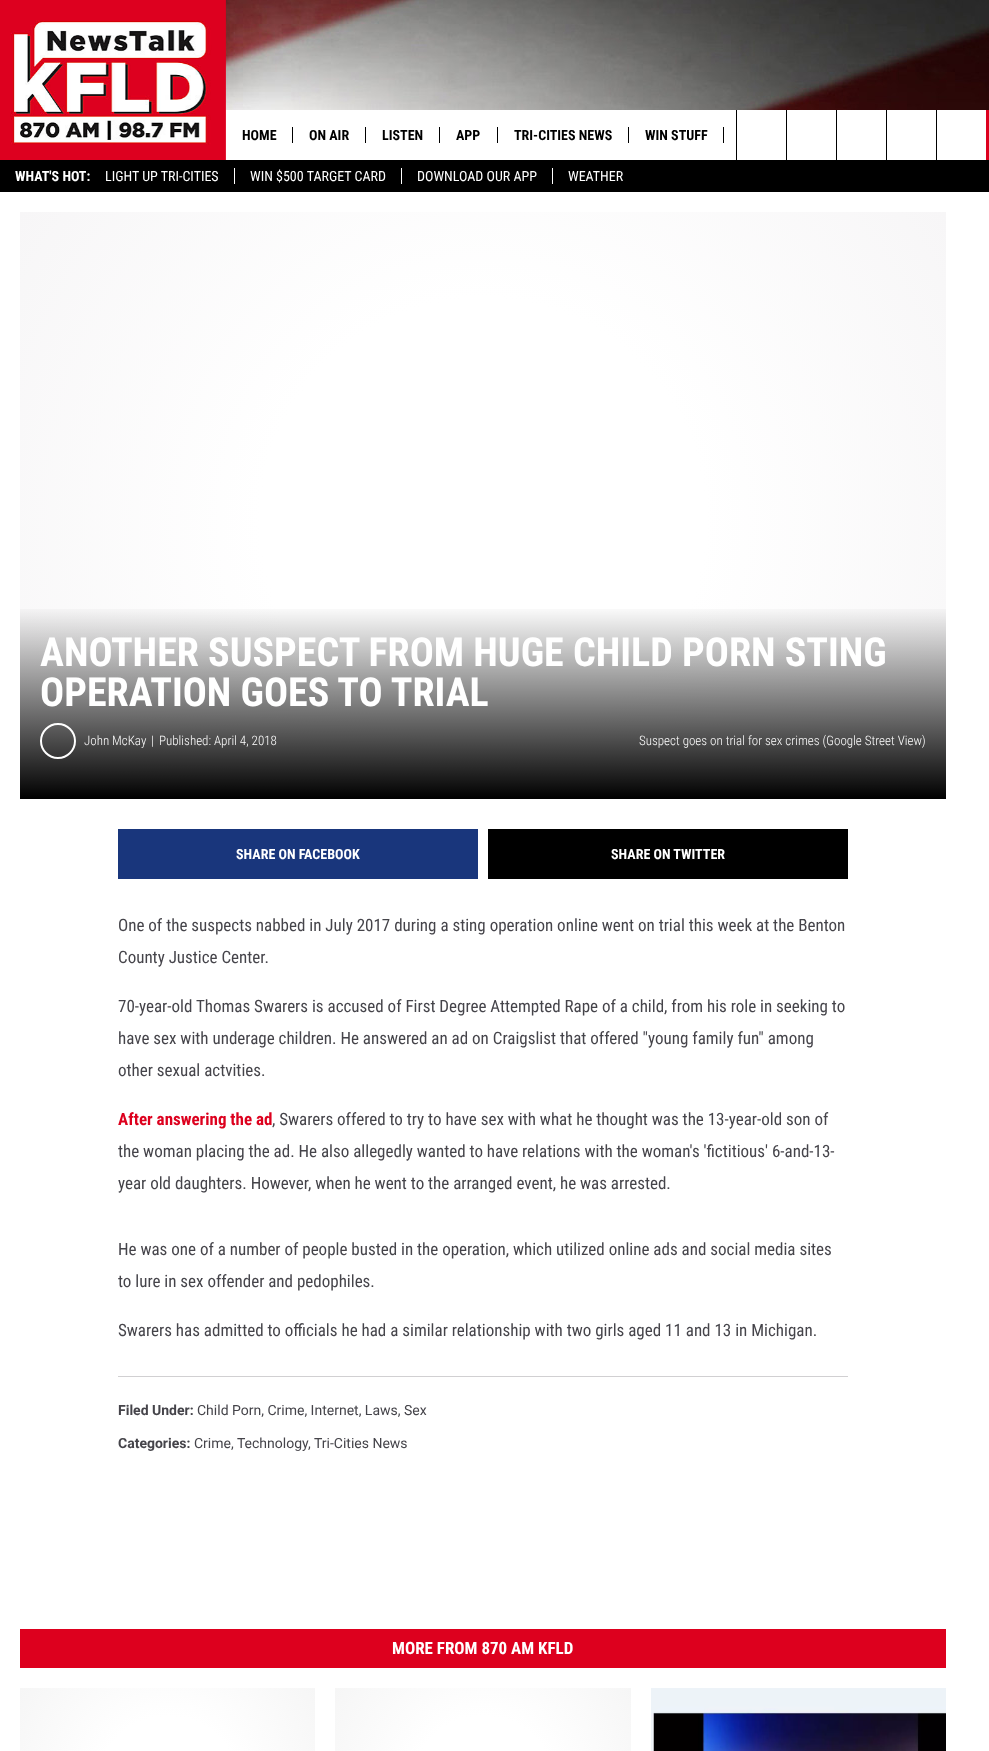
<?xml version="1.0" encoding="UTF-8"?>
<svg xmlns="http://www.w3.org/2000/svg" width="989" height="1751">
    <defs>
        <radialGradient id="g1" gradientUnits="userSpaceOnUse" cx="483" cy="521" r="556"><stop offset="0.4" stop-color="#FFFFFF"/><stop offset="1" stop-color="#F7F6F7"/></radialGradient>
        <linearGradient id="g2" gradientUnits="userSpaceOnUse" x1="483" y1="605" x2="483" y2="799"><stop offset="0" stop-color="#000000" stop-opacity="0"/><stop offset="1" stop-color="#000000"/></linearGradient>
        <radialGradient id="g3" gradientUnits="userSpaceOnUse" cx="168" cy="1787" r="177"><stop offset="0.4" stop-color="#FFFFFF"/><stop offset="1" stop-color="#F6F6F6"/></radialGradient>
        <radialGradient id="g4" gradientUnits="userSpaceOnUse" cx="483" cy="1787" r="178"><stop offset="0.4" stop-color="#FFFFFF"/><stop offset="1" stop-color="#F6F6F6"/></radialGradient>
    </defs>
    <rect width="100%" height="100%" fill="#FFFFFF"/>
    <image x="225" y="0" width="764" height="160" href="img_01.png"/>
    <image x="0" y="0" width="226" height="160" href="img_02.png"/>
    <rect x="226" y="110" width="510" height="50" fill="#FFFFFF"/>
    <text x="242" y="140" font-family="Roboto Condensed" font-size="14" font-weight="700" fill="#000000">HOME</text>
    <rect x="292" y="127" width="1" height="16" fill="#000000"/>
    <text x="309" y="140" font-family="Roboto Condensed" font-size="14" font-weight="700" fill="#000000">ON AIR</text>
    <rect x="365" y="127" width="1" height="16" fill="#000000"/>
    <text x="382" y="140" font-family="Roboto Condensed" font-size="14" font-weight="700" fill="#000000">LISTEN</text>
    <rect x="439" y="127" width="1" height="16" fill="#000000"/>
    <text x="456" y="140" font-family="Roboto Condensed" font-size="14" font-weight="700" fill="#000000">APP</text>
    <rect x="497" y="127" width="1" height="16" fill="#000000"/>
    <text x="514" y="140" font-family="Roboto Condensed" font-size="14" font-weight="700" fill="#000000">TRI-CITIES NEWS</text>
    <rect x="628" y="127" width="1" height="16" fill="#000000"/>
    <text x="645" y="140" font-family="Roboto Condensed" font-size="14" font-weight="700" fill="#000000">WIN STUFF</text>
    <rect x="723" y="127" width="1" height="16" fill="#000000"/>
    <rect x="737" y="110" width="49" height="50" fill="#FFFFFF"/>
    <rect x="736" y="110" width="1" height="50" fill="#000000"/>
    <rect x="787" y="110" width="199" height="50" fill="#FFFFFF"/>
    <rect x="786" y="110" width="1" height="50" fill="#000000"/>
    <rect x="836" y="110" width="1" height="50" fill="#000000"/>
    <rect x="886" y="110" width="1" height="50" fill="#000000"/>
    <rect x="936" y="110" width="1" height="50" fill="#000000"/>
    <rect x="986" y="110" width="3" height="50" fill="#DD001E"/>
    <rect x="0" y="160" width="989" height="32" fill="#000000"/>
    <text x="15" y="181" font-family="Roboto Condensed" font-size="14" font-weight="700" fill="#FFFFFF">WHAT'S HOT:</text>
    <text x="105" y="181" font-family="Roboto Condensed" font-size="14" fill="#FFFFFF">LIGHT UP TRI-CITIES</text>
    <text x="250" y="181" font-family="Roboto Condensed" font-size="14" fill="#FFFFFF">WIN $500 TARGET CARD</text>
    <rect x="234" y="168" width="1" height="16" fill="#FFFFFF"/>
    <text x="417" y="181" font-family="Roboto Condensed" font-size="14" fill="#FFFFFF">DOWNLOAD OUR APP</text>
    <rect x="401" y="168" width="1" height="16" fill="#FFFFFF"/>
    <text x="568" y="181" font-family="Roboto Condensed" font-size="14" fill="#FFFFFF">WEATHER</text>
    <rect x="552" y="168" width="1" height="16" fill="#FFFFFF"/>
    <rect x="20" y="212" width="926" height="586" fill="url(#g1)"/>
    <rect x="20" y="609" width="926" height="190" fill="url(#g2)"/>
    <text font-family="Roboto Condensed" font-size="40" font-weight="700" fill="#FFFFFF">
        <tspan x="40" y="666">ANOTHER SUSPECT FROM HUGE CHILD PORN STING</tspan>
        <tspan x="40" y="706">OPERATION GOES TO TRIAL</tspan>
    </text>
    <circle cx="58" cy="741" r="17" fill="none" stroke="#FFFFFF" stroke-width="2"/>
    <text x="84" y="745" font-family="Roboto Condensed" font-size="13" font-weight="300" fill="#FFFFFF">John McKay</text>
    <text x="151" y="745" font-family="Roboto Condensed" font-size="13" font-weight="300" fill="#FFFFFF">|</text>
    <text x="159" y="745" font-family="Roboto Condensed" font-size="13" font-weight="300" fill="#FFFFFF">Published: April 4, 2018</text>
    <text x="639" y="745" font-family="Roboto Condensed" font-size="13" font-weight="300" fill="#FFFFFF">Suspect goes on trial for sex crimes (Google Street View)</text>
    <rect x="118" y="829" width="360" height="50" fill="#19367C"/>
    <text x="236" y="859" font-family="Roboto Condensed" font-size="14" font-weight="700" fill="#FFFFFF">SHARE ON FACEBOOK</text>
    <rect x="488" y="829" width="360" height="50" fill="#000000"/>
    <text x="611" y="859" font-family="Roboto Condensed" font-size="14" font-weight="700" fill="#FFFFFF">SHARE ON TWITTER</text>
    <text font-family="Roboto Condensed" font-size="17" fill="#45444A">
        <tspan x="118" y="931">One of the suspects nabbed in July 2017 during a sting operation online went on trial this week at the Benton</tspan>
        <tspan x="118" y="963">County Justice Center.</tspan>
    </text>
    <text font-family="Roboto Condensed" font-size="17" fill="#45444A">
        <tspan x="118" y="1012">70-year-old Thomas Swarers is accused of First Degree Attempted Rape of a child, from his role in seeking to</tspan>
        <tspan x="118" y="1044">have sex with underage children. He answered an ad on Craigslist that offered "young family fun" among</tspan>
        <tspan x="118" y="1076">other sexual actvities.</tspan>
    </text>
    <text x="118" y="1125" font-family="Roboto Condensed" font-size="17" font-weight="700" fill="#DD001E">After answering the ad</text>
    <text x="272" y="1125" font-family="Roboto Condensed" font-size="17" fill="#45444A">, Swarers offered to try to have sex with what he thought was the 13-year-old son of</text>
    <text font-family="Roboto Condensed" font-size="17" fill="#45444A">
        <tspan x="118" y="1157">the woman placing the ad. He also allegedly wanted to have relations with the woman's 'fictitious' 6-and-13-</tspan>
        <tspan x="118" y="1189">year old daughters. However, when he went to the arranged event, he was arrested.</tspan>
    </text>
    <text font-family="Roboto Condensed" font-size="17" fill="#45444A">
        <tspan x="118" y="1255">He was one of a number of people busted in the operation, which utilized online ads and social media sites</tspan>
        <tspan x="118" y="1287">to lure in sex offender and pedophiles.</tspan>
    </text>
    <text x="118" y="1336" font-family="Roboto Condensed" font-size="17" fill="#45444A">Swarers has admitted to officials he had a similar relationship with two girls aged 11 and 13 in Michigan.</text>
    <rect x="118" y="1376" width="730" height="1" fill="#D1D0D2"/>
    <text x="118" y="1415" font-family="Roboto" font-size="14" font-weight="700" fill="#45444A">Filed Under:</text>
    <text x="197" y="1415" font-family="Roboto" font-size="14" fill="#45444A">Child Porn, Crime, Internet, Laws, Sex</text>
    <text x="118" y="1448" font-family="Roboto" font-size="14" font-weight="700" fill="#45444A">Categories:</text>
    <text x="194" y="1448" font-family="Roboto" font-size="14" fill="#45444A">Crime, Technology</text>
    <text x="308" y="1448" font-family="Roboto" font-size="14" fill="#45444A">, Tri-Cities News</text>
    <rect x="20" y="1629" width="926" height="39" fill="#DD001E"/>
    <text x="392" y="1654" font-family="Roboto Condensed" font-size="17" font-weight="700" fill="#FFFFFF">MORE FROM 870 AM KFLD</text>
    <rect x="20" y="1688" width="295" height="63" fill="url(#g3)"/>
    <rect x="335" y="1688" width="296" height="63" fill="url(#g4)"/>
    <image x="651" y="1688" width="295" height="63" href="img_03.png"/>
</svg>
